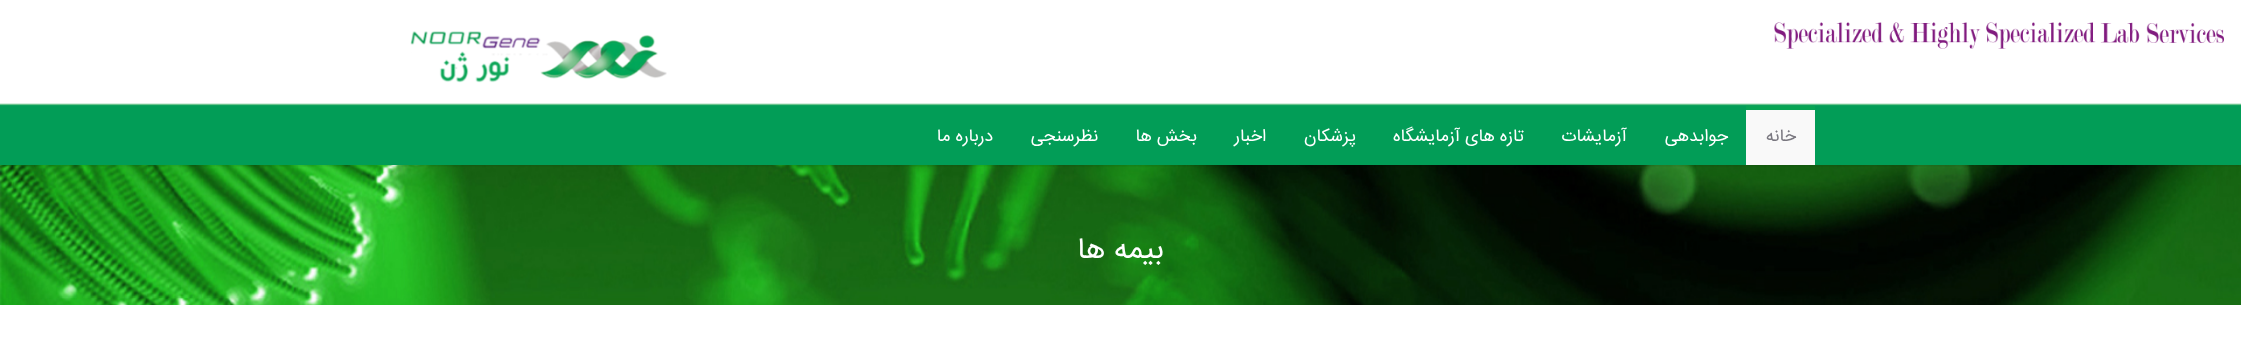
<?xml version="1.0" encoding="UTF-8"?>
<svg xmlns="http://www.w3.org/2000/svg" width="2241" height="342">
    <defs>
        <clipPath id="clip1"><rect x="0" y="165" width="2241" height="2"/></clipPath>
        <filter id="blur1" x="-50%" y="-200%" width="200%" height="500%"><feGaussianBlur stdDeviation="1"/></filter>
    </defs>
    <rect width="100%" height="100%" fill="#FFFFFF"/>
    <image x="0" y="165" width="2241" height="140" href="img_04.png"/>
    <g clip-path="url(#clip1)">
        <rect x="0" y="1" width="2241" height="165" fill="#000000" fill-opacity="0.1" filter="url(#blur1)"/>
    </g>
    <image x="0" y="103" width="2241" height="62" href="img_01.png"/>
    <image x="1774" y="22" width="450" height="27" href="img_02.png"/>
    <image x="410" y="31" width="257" height="52" href="img_03.png"/>
    <rect x="1746" y="110" width="69" height="55" fill="#F9F9F9"/>
    <rect x="1746" y="106" width="69" height="4" fill="#07A453"/>
    <text x="1796" y="141" font-family="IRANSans" font-size="17.5" direction="rtl" fill="#7A7880">خانه</text>
    <text x="1728" y="141" font-family="IRANSans" font-size="17.5" direction="rtl" fill="#FFFFFF">جوابدهی</text>
    <text x="1627" y="141" font-family="IRANSans" font-size="17.5" direction="rtl" fill="#FFFFFF">آزمایشات</text>
    <text x="1524" y="141" font-family="IRANSans" font-size="17.5" direction="rtl" fill="#FFFFFF">تازه های آزمایشگاه</text>
    <text x="1356" y="141" font-family="IRANSans" font-size="17.5" direction="rtl" fill="#FFFFFF">پزشکان</text>
    <text x="1266" y="141" font-family="IRANSans" font-size="17.5" direction="rtl" fill="#FFFFFF">اخبار</text>
    <text x="1197" y="141" font-family="IRANSans" font-size="17.5" direction="rtl" fill="#FFFFFF">بخش ها</text>
    <text x="1098" y="141" font-family="IRANSans" font-size="17.5" direction="rtl" fill="#FFFFFF">نظرسنجی</text>
    <text x="993" y="141" font-family="IRANSans" font-size="17.5" direction="rtl" fill="#FFFFFF">درباره ما</text>
    <text x="1164" y="258" font-family="IRANSans" font-size="30" direction="rtl" fill="#FFFFFF">بیمه ها</text>
</svg>
